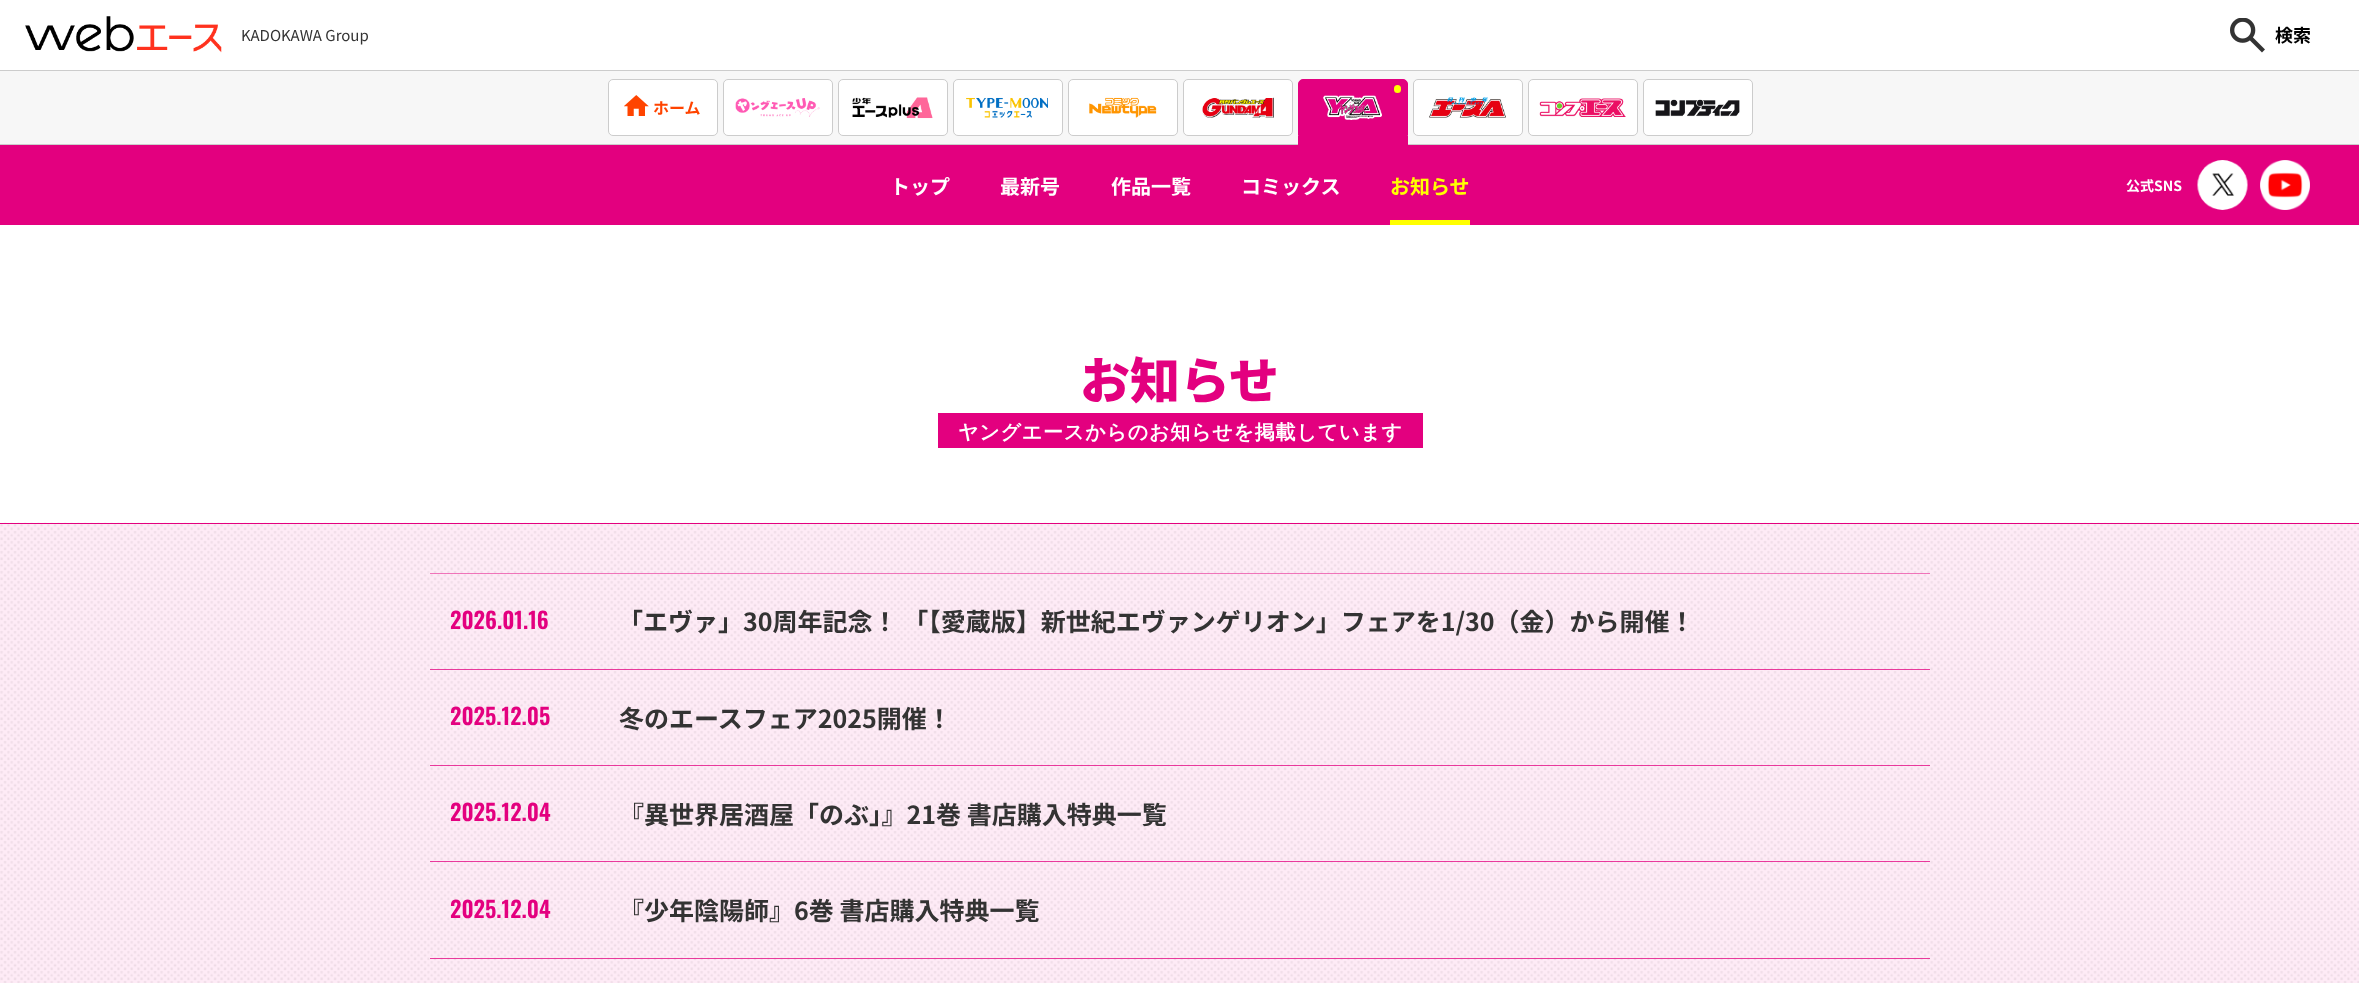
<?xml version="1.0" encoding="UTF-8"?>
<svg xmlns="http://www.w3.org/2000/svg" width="2359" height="983">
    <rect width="100%" height="100%" fill="#FFFFFF"/>
    <image x="25" y="16" width="197" height="37" href="img_01.png"/>
    <text x="241" y="41" font-family="Noto Sans JP" font-size="15" font-weight="100" fill="#333333">KADOKAWA Group</text>
    <image x="2230" y="18" width="35" height="35" href="img_02.png"/>
    <text x="2275" y="42" font-family="'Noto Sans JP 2'" font-size="18" font-weight="100" fill="#000000">検索</text>
    <rect x="0" y="71" width="2359" height="73" fill="#F7F7F7"/>
    <rect x="0" y="70" width="2359" height="1" fill="#CCCCCC"/>
    <rect x="0" y="144" width="2359" height="1" fill="#CCCCCC"/>
    <rect x="608.5" y="79.5" width="109" height="56" rx="4.5" fill="#FFFFFF" stroke="#CCCCCC"/>
    <image x="624" y="95" width="25" height="21" href="img_03.png"/>
    <text x="653" y="114" font-family="'Noto Sans JP 2'" font-size="16" font-weight="100" fill="#FF4400">ホーム</text>
    <rect x="723.5" y="79.5" width="109" height="56" rx="4.5" fill="#FFFFFF" stroke="#CCCCCC"/>
    <image x="735" y="98" width="85" height="19" href="img_04.png"/>
    <rect x="838.5" y="79.5" width="109" height="56" rx="4.5" fill="#FFFFFF" stroke="#CCCCCC"/>
    <image x="852" y="97" width="81" height="22" href="img_05.png"/>
    <rect x="953.5" y="79.5" width="109" height="56" rx="4.5" fill="#FFFFFF" stroke="#CCCCCC"/>
    <image x="966" y="97" width="82" height="21" href="img_06.png"/>
    <rect x="1068.5" y="79.5" width="109" height="56" rx="4.5" fill="#FFFFFF" stroke="#CCCCCC"/>
    <image x="1089" y="97" width="68" height="21" href="img_07.png"/>
    <rect x="1183.5" y="79.5" width="109" height="56" rx="4.5" fill="#FFFFFF" stroke="#CCCCCC"/>
    <image x="1202" y="97" width="72" height="21" href="img_08.png"/>
    <path d="M 1298 136 V 145 H 1408 V 93 V 91 V 136 Z" fill="#E3007F"/>
    <path d="M 1303 79.5 H 1403 C 1405.5 79.5 1407.5 81.5 1407.5 84 V 135.5 H 1298.5 V 84 C 1298.5 81.5 1300.5 79.5 1303 79.5 Z" fill="#E3007F" stroke="#E3007F"/>
    <rect x="1394" y="85" width="7" height="8" rx="3.5" fill="#FFFF00"/>
    <image x="1323" y="95" width="59" height="25" href="img_09.png"/>
    <rect x="1413.5" y="79.5" width="109" height="56" rx="4.5" fill="#FFFFFF" stroke="#CCCCCC"/>
    <image x="1429" y="97" width="77" height="21" href="img_10.png"/>
    <rect x="1528.5" y="79.5" width="109" height="56" rx="4.5" fill="#FFFFFF" stroke="#CCCCCC"/>
    <image x="1539" y="98" width="87" height="19" href="img_11.png"/>
    <rect x="1643.5" y="79.5" width="109" height="56" rx="4.5" fill="#FFFFFF" stroke="#CCCCCC"/>
    <image x="1655" y="99" width="85" height="18" href="img_12.png"/>
    <rect x="0" y="145" width="2359" height="80" fill="#E3007F"/>
    <text x="890" y="194" font-family="'Noto Sans JP 2'" font-size="20" font-weight="100" fill="#FFFFFF">トップ</text>
    <text x="1000" y="194" font-family="'Noto Sans JP 2'" font-size="20" font-weight="100" fill="#FFFFFF">最新号</text>
    <text x="1111" y="194" font-family="'Noto Sans JP 2'" font-size="20" font-weight="100" fill="#FFFFFF">作品一覧</text>
    <text x="1241" y="194" font-family="'Noto Sans JP 2'" font-size="20" font-weight="100" fill="#FFFFFF">コミックス</text>
    <text x="1390" y="194" font-family="'Noto Sans JP 2'" font-size="20" font-weight="100" fill="#FFFF00">お知らせ</text>
    <rect x="1390" y="220" width="80" height="5" fill="#FFFF00"/>
    <text x="2126" y="191" font-family="'Noto Sans JP 2'" font-size="14" font-weight="100" fill="#FFFFFF">公式SNS</text>
    <image x="2197" y="160" width="51" height="50" href="img_13.png"/>
    <image x="2260" y="160" width="50" height="50" href="img_14.png"/>
    <text x="1080" y="399" font-family="'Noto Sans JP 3'" font-size="50" font-weight="100" fill="#E3007F">お知らせ</text>
    <rect x="938" y="413" width="485" height="35" fill="#E3007F"/>
    <text x="958" y="439" font-family="WenQuanYi Zen Hei" font-size="20" font-weight="700" letter-spacing="0.8" fill="#FFFFFF">ヤングエースからのお知らせを掲載しています</text>
    <rect x="0" y="524" width="2359" height="459" fill="#FEEBF6"/>
    <image x="0" y="522" width="2359" height="461" href="img_15.png"/>
    <rect x="0" y="523" width="2359" height="1" fill="#E3007F"/>
    <rect x="430" y="573" width="1500" height="1" fill="#E3007F" fill-opacity="0.5"/>
    <rect x="430" y="669" width="1500" height="1" fill="#E3007F" fill-opacity="0.5"/>
    <text x="450" y="629" font-family="Oswald" font-size="22.5" font-weight="600" fill="#E3007F">2026.01.16</text>
    <text x="618" y="631" font-family="'Noto Sans JP 2'" font-size="25" font-weight="100" fill="#333333">「エヴァ」30周年記念！ 「【愛蔵版】新世紀エヴァンゲリオン」フェアを1/30（金）から開催！</text>
    <rect x="430" y="669" width="1500" height="1" fill="#E3007F" fill-opacity="0.5"/>
    <rect x="430" y="765" width="1500" height="1" fill="#E3007F" fill-opacity="0.5"/>
    <text x="450" y="725" font-family="Oswald" font-size="22.5" font-weight="600" fill="#E3007F">2025.12.05</text>
    <text x="619" y="728" font-family="'Noto Sans JP 2'" font-size="25" font-weight="100" fill="#333333">冬のエースフェア2025開催！</text>
    <rect x="430" y="765" width="1500" height="1" fill="#E3007F" fill-opacity="0.5"/>
    <rect x="430" y="861" width="1500" height="1" fill="#E3007F" fill-opacity="0.5"/>
    <text x="450" y="821" font-family="Oswald" font-size="22.5" font-weight="600" fill="#E3007F">2025.12.04</text>
    <text x="619" y="824" font-family="'Noto Sans JP 2'" font-size="25" font-weight="100" fill="#333333">『異世界居酒屋「のぶ」』21巻 書店購入特典一覧</text>
    <rect x="430" y="861" width="1500" height="1" fill="#E3007F" fill-opacity="0.5"/>
    <rect x="430" y="958" width="1500" height="1" fill="#E3007F" fill-opacity="0.5"/>
    <text x="450" y="918" font-family="Oswald" font-size="22.5" font-weight="600" fill="#E3007F">2025.12.04</text>
    <text x="619" y="920" font-family="'Noto Sans JP 2'" font-size="25" font-weight="100" fill="#333333">『少年陰陽師』6巻 書店購入特典一覧</text>
    <rect x="430" y="958" width="1500" height="1" fill="#E3007F" fill-opacity="0.5"/>
</svg>
